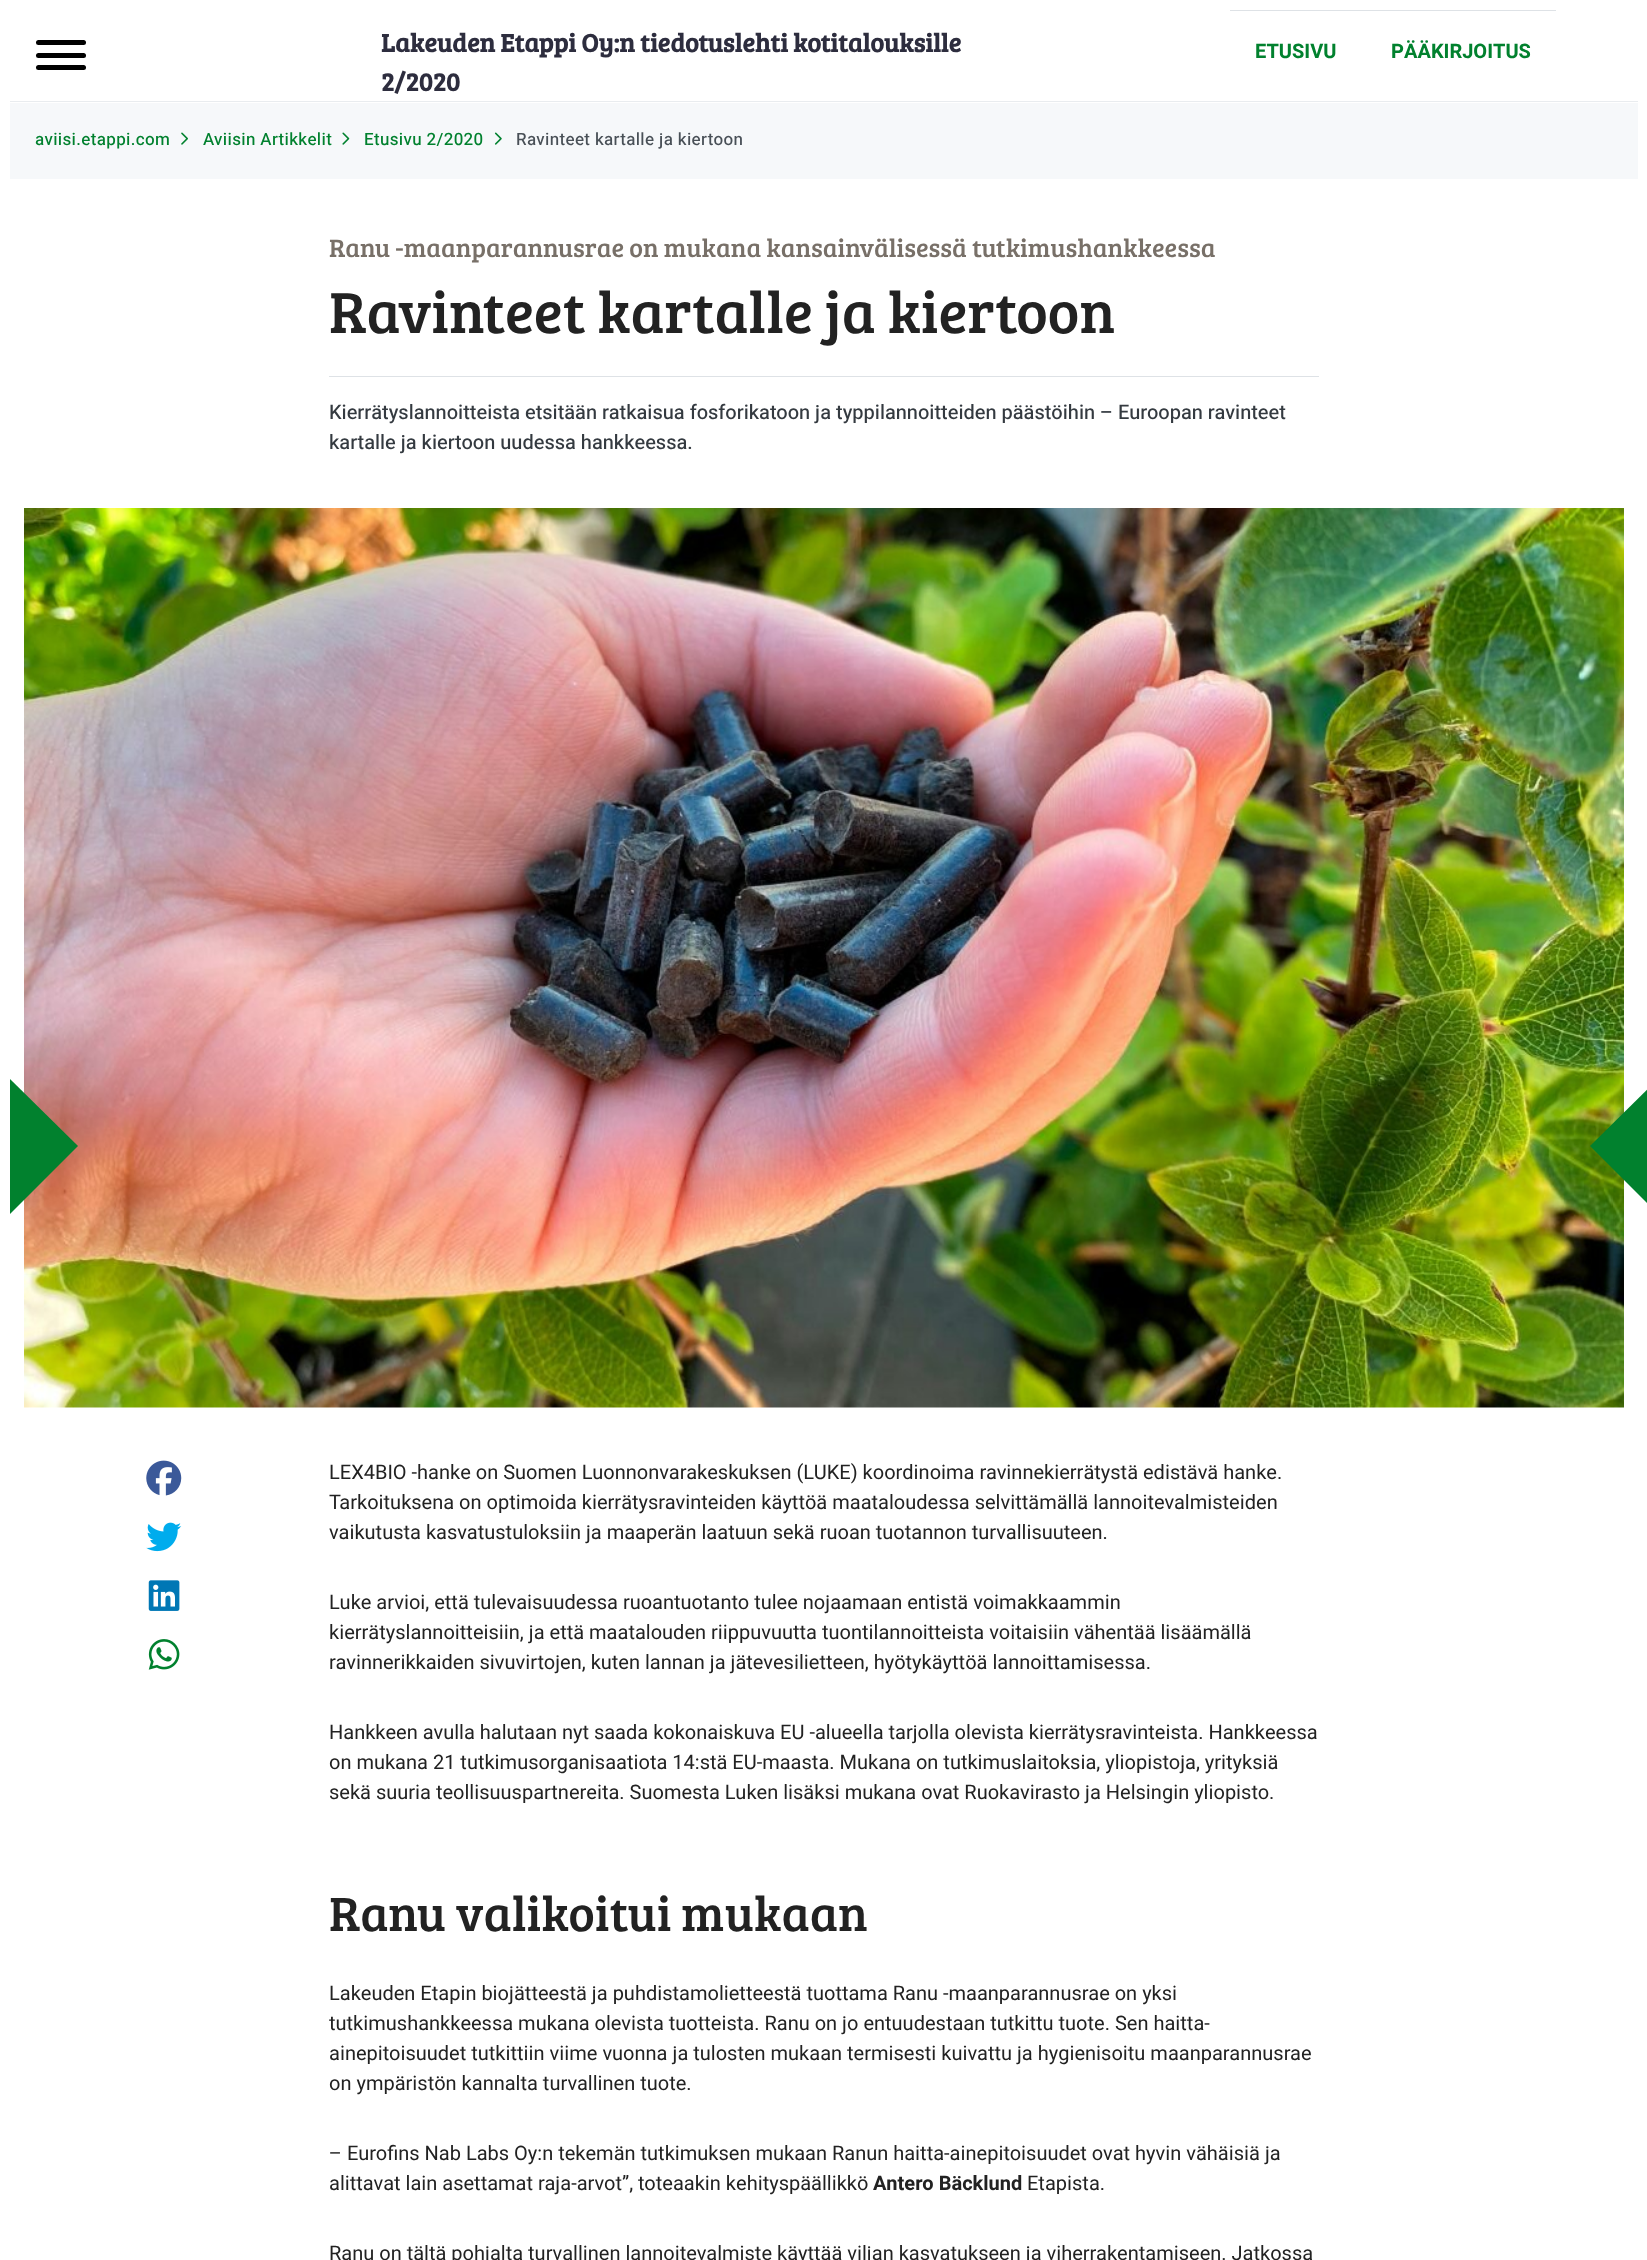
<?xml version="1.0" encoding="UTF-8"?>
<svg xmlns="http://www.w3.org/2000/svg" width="1647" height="2260">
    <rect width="100%" height="100%" fill="#FFFFFF"/>
    <rect x="10" y="101" width="1628" height="1" fill="#E9ECEF"/>
    <rect x="36" y="53" width="50" height="5" rx="2.5" fill="#000000"/>
    <rect x="36" y="40" width="50" height="5" rx="2.5" fill="#000000"/>
    <rect x="36" y="65" width="50" height="5" rx="2.5" fill="#000000"/>
    <text font-family="Bree Serif" font-size="26" font-weight="700" fill="#2D2D3E">
        <tspan x="381" y="52">Lakeuden Etappi Oy:n tiedotuslehti kotitalouksille</tspan>
        <tspan x="381" y="91">2/2020</tspan>
    </text>
    <rect x="1230" y="10" width="326" height="1" fill="#DEE2E6"/>
    <text x="1255" y="58" font-family="Heebo" font-size="20" font-weight="700" fill="#01812E">ETUSIVU</text>
    <text x="1391" y="58" font-family="Heebo" font-size="20" font-weight="700" fill="#01812E">PÄÄKIRJOITUS</text>
    <rect x="10" y="103" width="1628" height="76" fill="#F6F8FA"/>
    <text x="35" y="145" font-family="Heebo" font-size="17" font-weight="500" letter-spacing="0.35" fill="#01812E">aviisi.etappi.com</text>
    <image x="181" y="132" width="7" height="13" href="img_01.png"/>
    <text x="203" y="145" font-family="Heebo" font-size="17" font-weight="500" letter-spacing="0.35" fill="#01812E">Aviisin Artikkelit</text>
    <image x="342" y="132" width="8" height="13" href="img_02.png"/>
    <text x="364" y="145" font-family="Heebo" font-size="17" font-weight="500" letter-spacing="0.35" fill="#01812E">Etusivu 2/2020</text>
    <image x="494" y="132" width="8" height="13" href="img_03.png"/>
    <text x="516" y="145" font-family="Heebo" font-size="17" font-weight="500" letter-spacing="0.35" fill="#495057">Ravinteet kartalle ja kiertoon</text>
    <text x="329" y="257" font-family="Bree Serif" font-size="26" fill="#787068">Ranu -maanparannusrae on mukana kansainvälisessä tutkimushankkeessa</text>
    <text x="329" y="333" font-family="Bree Serif" font-size="59.75" fill="#222222">Ravinteet kartalle ja kiertoon</text>
    <rect x="329" y="376" width="990" height="1" fill="#DEE2E6"/>
    <text font-family="Heebo" font-size="20" font-weight="500" fill="#343A40">
        <tspan x="329" y="419">Kierrätyslannoitteista etsitään ratkaisua fosforikatoon ja typpilannoitteiden päästöihin – Euroopan ravinteet</tspan>
        <tspan x="329" y="449">kartalle ja kiertoon uudessa hankkeessa.</tspan>
    </text>
    <image x="24" y="508" width="1600" height="900" href="img_04.png"/>
    <image x="146" y="1460" width="36" height="36" href="img_05.png"/>
    <image x="146" y="1522" width="36" height="30" href="img_06.png"/>
    <image x="148" y="1580" width="32" height="31" href="img_07.png"/>
    <image x="148" y="1639" width="32" height="31" href="img_08.png"/>
    <text font-family="Heebo" font-size="20" fill="#222222">
        <tspan x="329" y="1479">LEX4BIO -hanke on Suomen Luonnonvarakeskuksen (LUKE) koordinoima ravinnekierrätystä edistävä hanke.</tspan>
        <tspan x="329" y="1509">Tarkoituksena on optimoida kierrätysravinteiden käyttöä maataloudessa selvittämällä lannoitevalmisteiden</tspan>
        <tspan x="329" y="1539">vaikutusta kasvatustuloksiin ja maaperän laatuun sekä ruoan tuotannon turvallisuuteen.</tspan>
    </text>
    <text font-family="Heebo" font-size="20" fill="#222222">
        <tspan x="329" y="1609">Luke arvioi, että tulevaisuudessa ruoantuotanto tulee nojaamaan entistä voimakkaammin</tspan>
        <tspan x="329" y="1639">kierrätyslannoitteisiin, ja että maatalouden riippuvuutta tuontilannoitteista voitaisiin vähentää lisäämällä</tspan>
        <tspan x="329" y="1669">ravinnerikkaiden sivuvirtojen, kuten lannan ja jätevesilietteen, hyötykäyttöä lannoittamisessa.</tspan>
    </text>
    <text font-family="Heebo" font-size="20" fill="#222222">
        <tspan x="329" y="1739">Hankkeen avulla halutaan nyt saada kokonaiskuva EU -alueella tarjolla olevista kierrätysravinteista. Hankkeessa</tspan>
        <tspan x="329" y="1769">on mukana 21 tutkimusorganisaatiota 14:stä EU-maasta. Mukana on tutkimuslaitoksia, yliopistoja, yrityksiä</tspan>
        <tspan x="329" y="1799">sekä suuria teollisuuspartnereita. Suomesta Luken lisäksi mukana ovat Ruokavirasto ja Helsingin yliopisto.</tspan>
    </text>
    <text x="329" y="1931" font-family="Bree Serif" font-size="49.75" fill="#222222">Ranu valikoitui mukaan</text>
    <text font-family="Heebo" font-size="20" fill="#222222">
        <tspan x="329" y="2000">Lakeuden Etapin biojätteestä ja puhdistamolietteestä tuottama Ranu -maanparannusrae on yksi</tspan>
        <tspan x="329" y="2030">tutkimushankkeessa mukana olevista tuotteista. Ranu on jo entuudestaan tutkittu tuote. Sen haitta-</tspan>
        <tspan x="329" y="2060">ainepitoisuudet tutkittiin viime vuonna ja tulosten mukaan termisesti kuivattu ja hygienisoitu maanparannusrae</tspan>
        <tspan x="329" y="2090">on ympäristön kannalta turvallinen tuote.</tspan>
    </text>
    <text font-family="Heebo" font-size="20" fill="#222222">
        <tspan x="329" y="2160">– Eurofins Nab Labs Oy:n tekemän tutkimuksen mukaan Ranun haitta-ainepitoisuudet ovat hyvin vähäisiä ja</tspan>
        <tspan x="329" y="2190">alittavat lain asettamat raja-arvot”, toteaakin kehityspäällikkö</tspan>
    </text>
    <text x="873" y="2190" font-family="Heebo" font-size="20" font-weight="700" fill="#222222">Antero Bäcklund</text>
    <text x="1027" y="2190" font-family="Heebo" font-size="20" fill="#222222">Etapista.</text>
    <text x="329" y="2260" font-family="Heebo" font-size="20" fill="#222222">Ranu on tältä pohjalta turvallinen lannoitevalmiste käyttää viljan kasvatukseen ja viherrakentamiseen. Jatkossa</text>
    <path d="M 10 1214 V 1079 L 78 1146 Z" fill="#01812E"/>
    <path d="M 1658 1079 V 1214 L 1590 1146 Z" fill="#01812E"/>
</svg>
